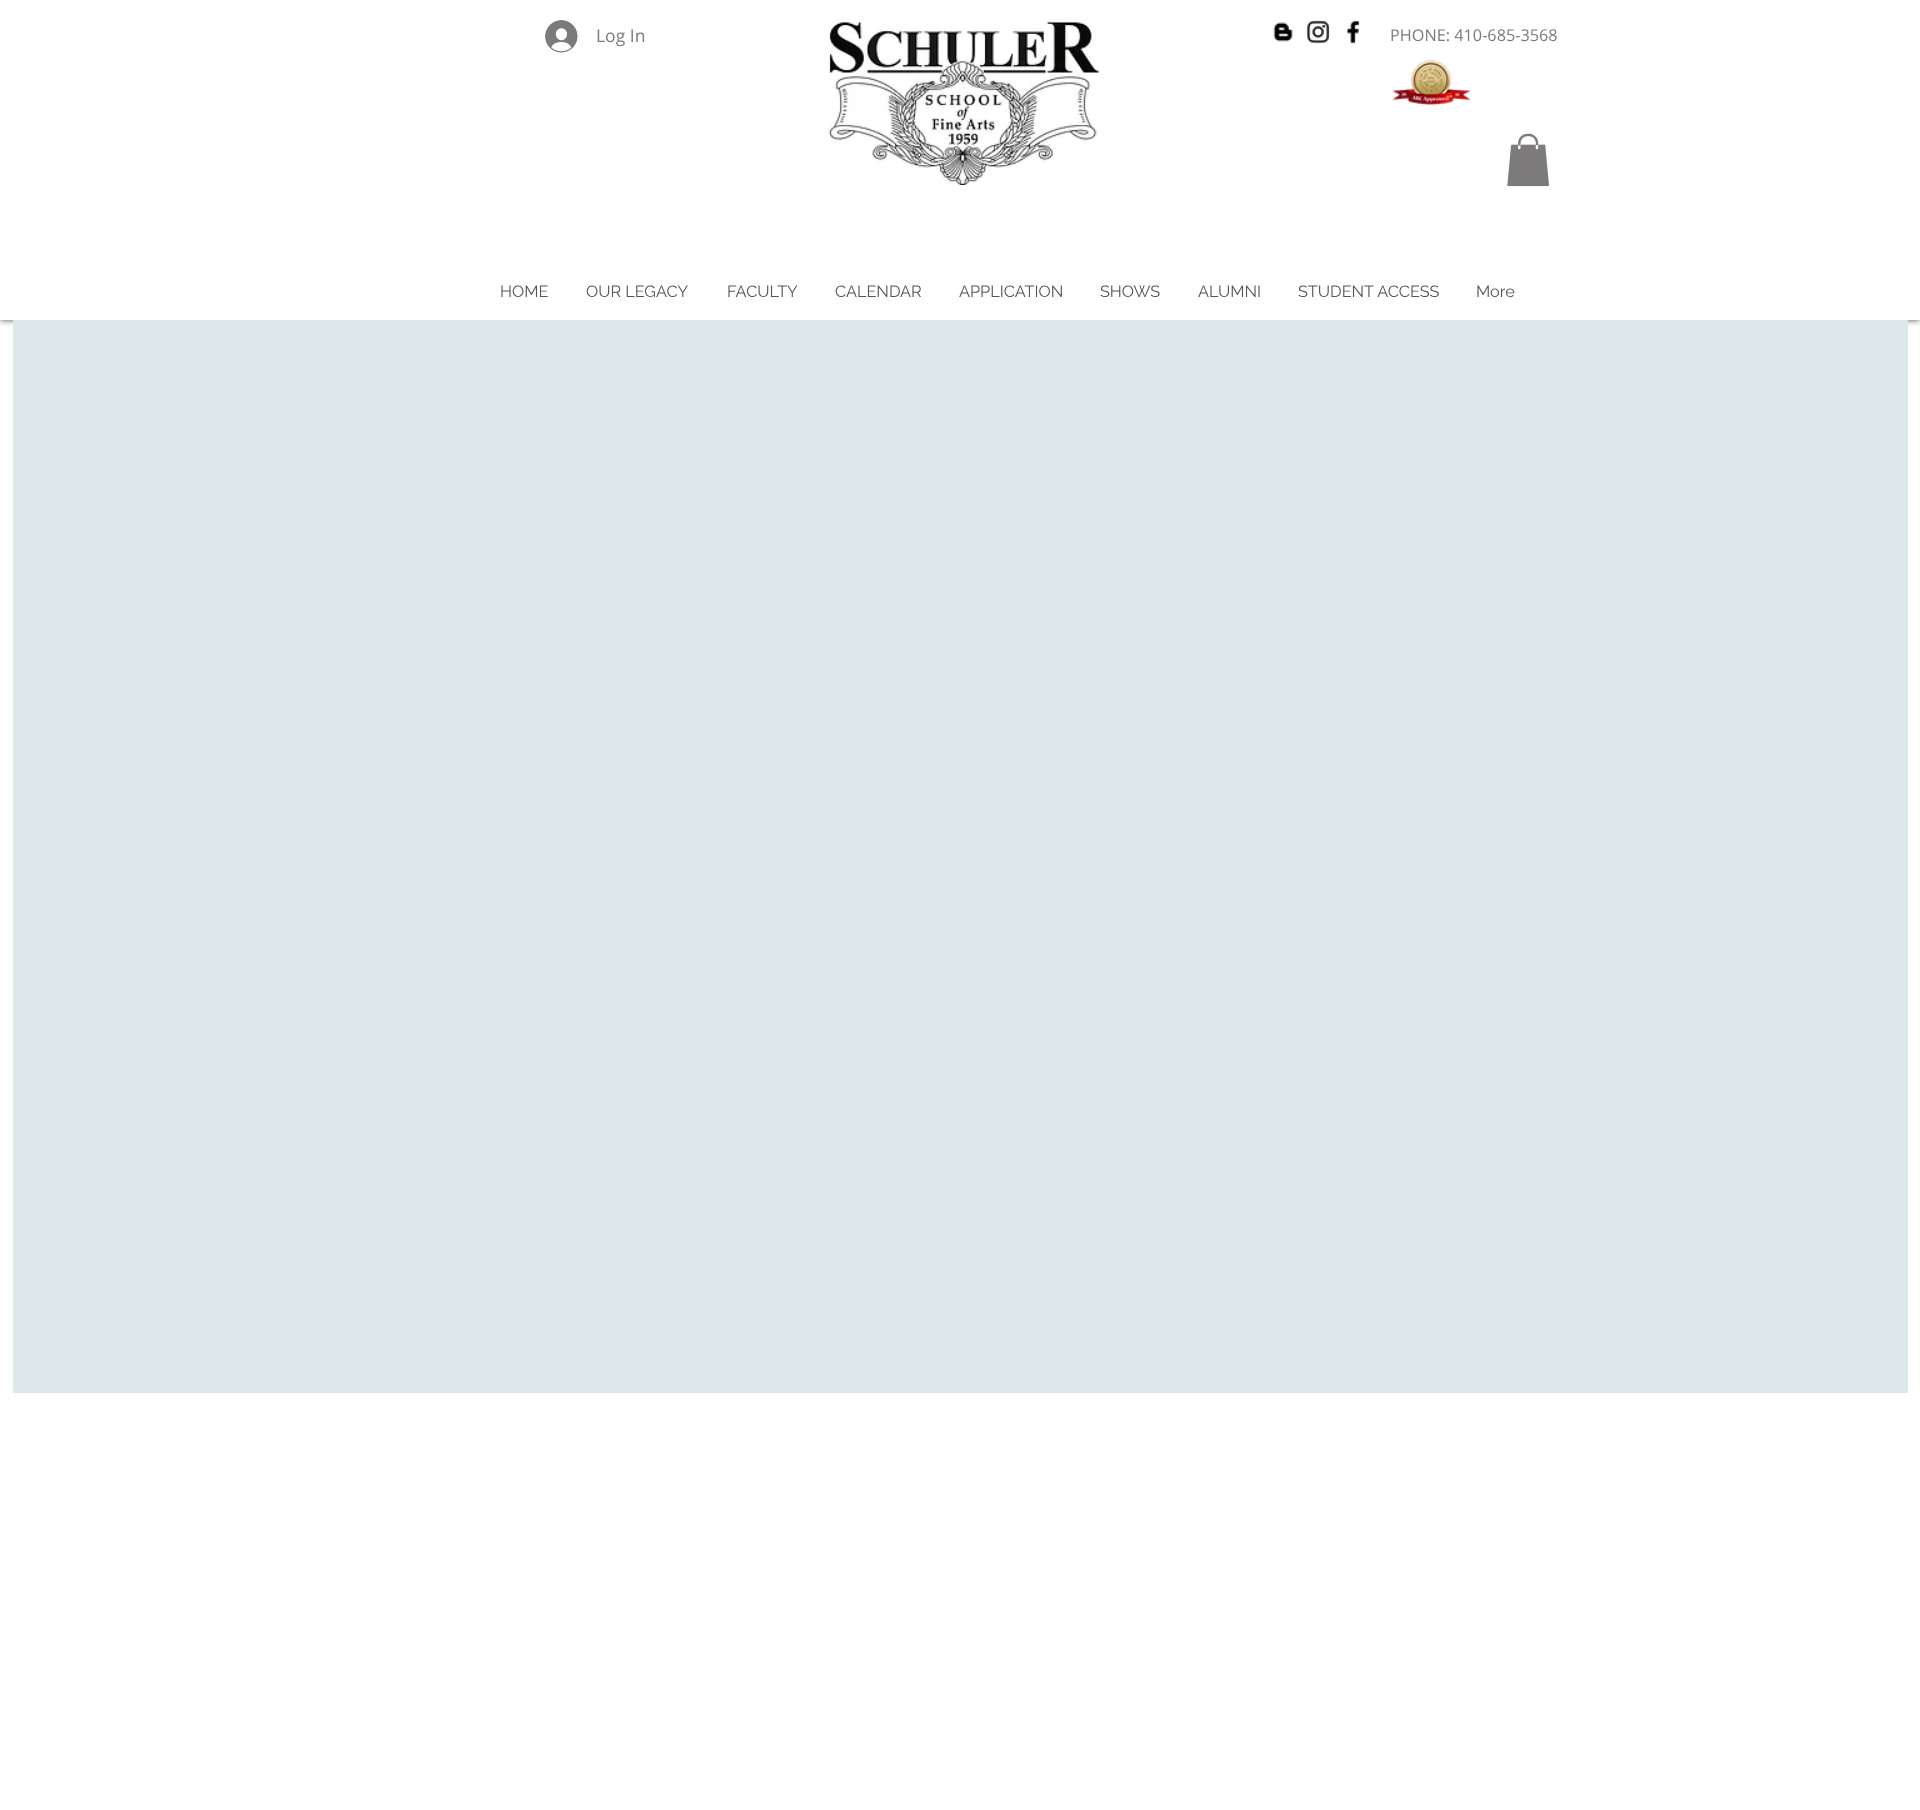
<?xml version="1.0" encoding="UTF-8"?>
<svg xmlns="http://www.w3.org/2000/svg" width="1920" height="1810">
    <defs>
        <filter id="blur1" x="-50%" y="-200%" width="200%" height="500%"><feGaussianBlur stdDeviation="3"/></filter>
    </defs>
    <rect width="100%" height="100%" fill="#FFFFFF"/>
    <rect x="0" y="0" width="1920" height="320" fill="#000000" fill-opacity="0.7" filter="url(#blur1)"/>
    <rect x="0" y="0" width="1920" height="320" fill="#FFFFFF"/>
    <image x="545" y="20" width="33" height="33" href="img_01.png"/>
    <text x="596" y="42" font-family="Open Sans" font-size="17.5" fill="#7C7A7A">Log In</text>
    <image x="828" y="19" width="272" height="166" href="img_02.png"/>
    <image x="1273" y="22" width="20" height="20" href="img_03.png"/>
    <image x="1306" y="20" width="24" height="24" href="img_04.png"/>
    <image x="1346" y="20" width="14" height="24" href="img_05.png"/>
    <text x="1390" y="41" font-family="Open Sans" font-size="16.25" fill="#7C7A7A">PHONE: 410-685-3568</text>
    <image x="1392" y="59" width="79" height="47" href="img_06.png"/>
    <image x="1507" y="133" width="42" height="54" href="img_07.png"/>
    <text x="500" y="297" font-family="Raleway" font-size="16.25" fill="#555555">HOME</text>
    <text x="586" y="297" font-family="Raleway" font-size="16.25" fill="#555555">OUR LEGACY</text>
    <text x="727" y="297" font-family="Raleway" font-size="16.25" fill="#555555">FACULTY</text>
    <text x="835" y="297" font-family="Raleway" font-size="16.25" fill="#555555">CALENDAR</text>
    <text x="959" y="297" font-family="Raleway" font-size="16.25" fill="#555555">APPLICATION</text>
    <text x="1100" y="297" font-family="Raleway" font-size="16.25" fill="#555555">SHOWS</text>
    <text x="1198" y="297" font-family="Raleway" font-size="16.25" fill="#555555">ALUMNI</text>
    <text x="1298" y="297" font-family="Raleway" font-size="16.25" fill="#555555">STUDENT ACCESS</text>
    <text x="1476" y="297" font-family="Raleway" font-size="16.25" fill="#555555">More</text>
    <rect x="13" y="320" width="1895" height="1073" fill="#DDE8EB"/>
</svg>
